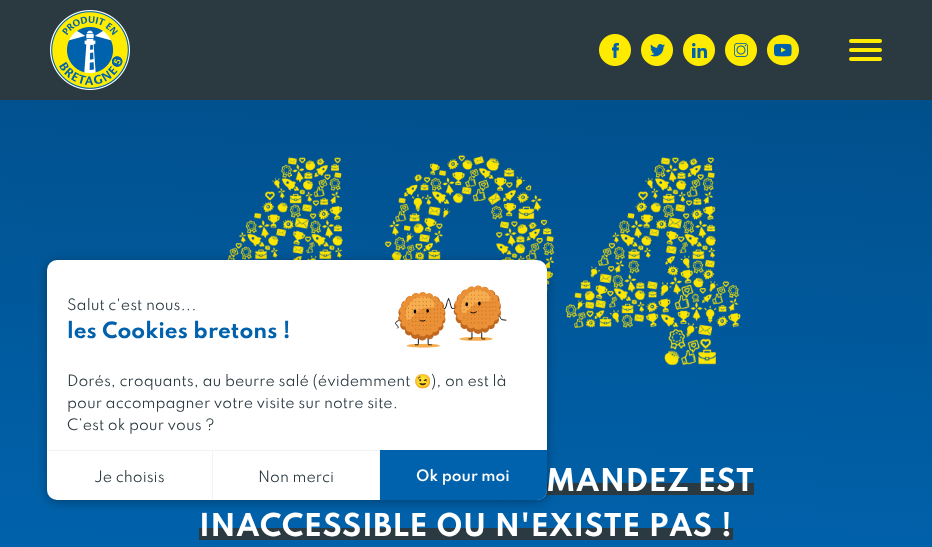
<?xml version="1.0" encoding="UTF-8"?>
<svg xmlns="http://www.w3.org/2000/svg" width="932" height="547">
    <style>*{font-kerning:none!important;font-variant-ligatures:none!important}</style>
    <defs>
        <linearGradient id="g1" gradientUnits="userSpaceOnUse" x1="480" y1="-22" x2="452" y2="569"><stop offset="0" stop-color="#014C85"/><stop offset="1" stop-color="#0062AC"/></linearGradient>
        <filter id="blur1" x="-50%" y="-200%" width="200%" height="500%"><feGaussianBlur stdDeviation="5.5"/></filter>
    </defs>
    <rect width="100%" height="100%" fill="#FFFFFF"/>
    <rect x="0" y="100" width="932" height="447" fill="url(#g1)"/>
    <rect x="0" y="0" width="932" height="100" fill="#2B3A41"/>
    <image x="50" y="10" width="80" height="80" href="img_01.png"/>
    <image x="599" y="34" width="32" height="32" href="img_02.png"/>
    <image x="641" y="34" width="32" height="32" href="img_03.png"/>
    <image x="683" y="34" width="32" height="32" href="img_04.png"/>
    <image x="725" y="34" width="32" height="32" href="img_05.png"/>
    <image x="767" y="34" width="32" height="32" href="img_06.png"/>
    <rect x="849" y="39" width="33" height="4" rx="2" fill="#FFEB00"/>
    <rect x="849" y="48" width="33" height="4" rx="2" fill="#FFEB00"/>
    <rect x="849" y="57" width="33" height="4" rx="2" fill="#FFEB00"/>
    <image x="227" y="155" width="514" height="211" href="img_08.png"/>
    <rect x="545" y="483" width="209" height="12" fill="#2B3A41"/>
    <rect x="47" y="262" width="500" height="240" rx="10" fill="#000000" fill-opacity="0.32" filter="url(#blur1)"/>
    <rect x="47" y="260" width="500" height="240" rx="10" fill="#FFFFFF"/>
    <text x="67" y="310" font-family="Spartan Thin" font-size="14" fill="#2B3A41">Salut c'est nous...</text>
    <text x="67" y="338" font-family="Spartan Thin" font-size="20" font-weight="700" fill="#0061AC">les Cookies bretons !</text>
    <image x="395" y="285" width="112" height="63" href="img_07.png"/>
    <text x="67" y="386" font-family="Spartan Thin" font-size="14" fill="#2B3A41">Dorés, croquants, au beurre salé (évidemment</text>
    <text x="414" y="386" font-family="Noto Color Emoji" font-size="14" fill="#2B3A41">😉</text>
    <text x="431" y="386" font-family="Spartan Thin" font-size="14" fill="#2B3A41">), on est là</text>
    <text font-family="Spartan Thin" font-size="14" fill="#2B3A41">
        <tspan x="67" y="408">pour accompagner votre visite sur notre site.</tspan>
        <tspan x="67" y="430">C’est ok pour vous ?</tspan>
    </text>
    <rect x="47" y="450" width="333" height="1" fill="#F3F3F3"/>
    <rect x="212" y="450" width="1" height="50" fill="#F3F3F3"/>
    <text x="94" y="482" font-family="Spartan Thin" font-size="14" fill="#2B3A41">Je choisis</text>
    <rect x="379" y="450" width="1" height="50" fill="#F3F3F3"/>
    <text x="258" y="482" font-family="Spartan Thin" font-size="14" fill="#2B3A41">Non merci</text>
    <path d="M 380 450 H 547 V 490 C 547 495.5 542.5 500 537 500 H 380 Z" fill="#0062AC"/>
    <text x="416" y="481" font-family="Spartan Thin" font-size="14" font-weight="600" fill="#FFFFFF">Ok pour moi</text>
    <text x="546" y="491" font-family="Spartan Thin" font-size="28" font-weight="700" letter-spacing="0.5" fill="#FFFFFF">MANDEZ EST</text>
    <rect x="199" y="528" width="534" height="12" fill="#2B3A41"/>
    <text x="199" y="536" font-family="Spartan Thin" font-size="28" font-weight="700" letter-spacing="0.5" fill="#FFFFFF">INACCESSIBLE OU N'EXISTE PAS</text>
    <text x="721" y="536" font-family="Spartan Thin" font-size="28" font-weight="700" letter-spacing="0.5" fill="#FFFFFF">!</text>
</svg>
